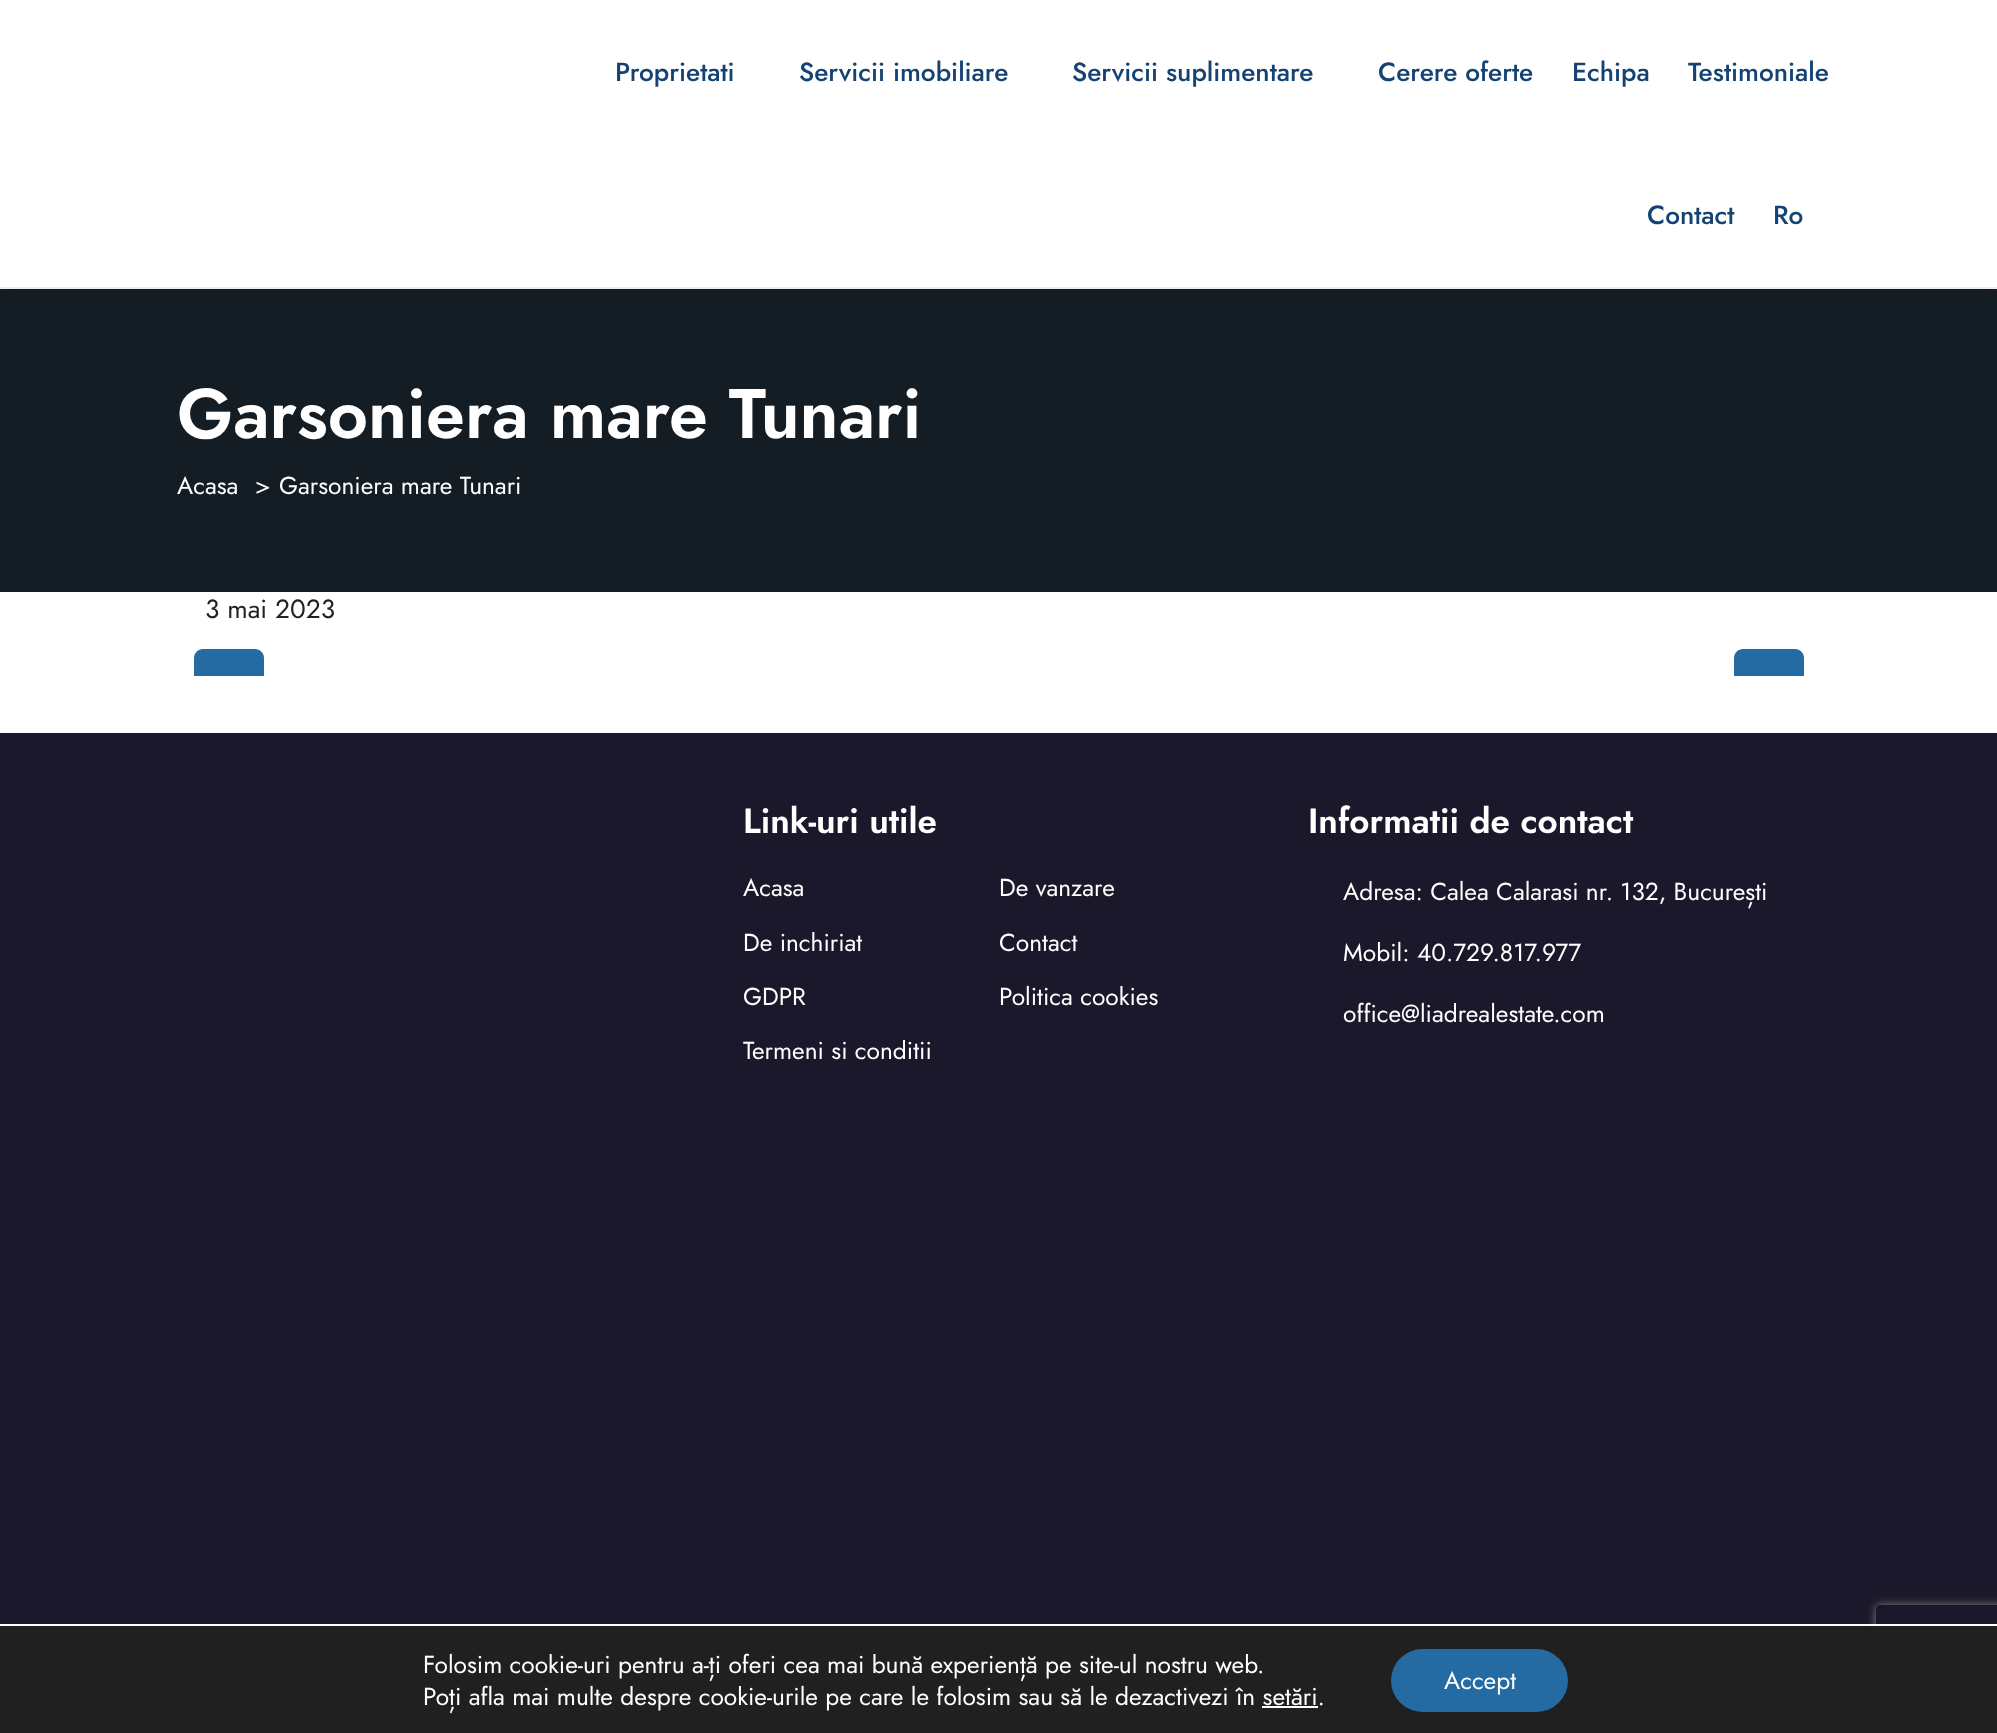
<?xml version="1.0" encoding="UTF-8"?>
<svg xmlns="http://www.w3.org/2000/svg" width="1997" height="1733">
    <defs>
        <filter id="blur1" x="-50%" y="-200%" width="200%" height="500%"><feGaussianBlur stdDeviation="9"/></filter>
        <clipPath id="clip1"><path d="M 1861 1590 H 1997 V 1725 H 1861 Z M 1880 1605 H 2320 C 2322 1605 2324 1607 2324 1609 V 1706 C 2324 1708 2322 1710 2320 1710 H 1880 C 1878 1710 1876 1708 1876 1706 V 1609 C 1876 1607 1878 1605 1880 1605 Z" clip-rule="evenodd"/></clipPath>
        <filter id="blur2" x="-50%" y="-200%" width="200%" height="500%"><feGaussianBlur stdDeviation="4.5"/></filter>
    </defs>
    <rect width="100%" height="100%" fill="#FFFFFF"/>
    <rect x="0" y="289" width="1997" height="303" fill="#151D24"/>
    <rect x="0" y="0" width="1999" height="289" fill="#000000" fill-opacity="0.07" filter="url(#blur1)"/>
    <rect x="0" y="0" width="1997" height="287" fill="#FFFFFF"/>
    <rect x="0" y="287" width="1997" height="2" fill="#EEEEEE"/>
    <text x="615" y="81" font-family="Jost" font-size="26.25" font-weight="500" fill="#144273">Proprietati</text>
    <text x="799" y="81" font-family="Jost" font-size="26.25" font-weight="500" fill="#144273">Servicii imobiliare</text>
    <text x="1072" y="81" font-family="Jost" font-size="26.25" font-weight="500" fill="#144273">Servicii suplimentare</text>
    <text x="1378" y="81" font-family="Jost" font-size="26.25" font-weight="500" fill="#144273">Cerere oferte</text>
    <text x="1572" y="81" font-family="Jost" font-size="26.25" font-weight="500" fill="#144273">Echipa</text>
    <text x="1688" y="81" font-family="Jost" font-size="26.25" font-weight="500" fill="#144273">Testimoniale</text>
    <text x="1647" y="224" font-family="Jost" font-size="26.25" font-weight="500" fill="#144273">Contact</text>
    <text x="1773" y="224" font-family="Jost" font-size="26.25" font-weight="500" fill="#144273">Ro</text>
    <text x="177" y="438" font-family="Jost" font-size="70" font-weight="600" fill="#FFFFFF">Garsoniera mare Tunari</text>
    <text x="177" y="494" font-family="Jost" font-size="24.5" fill="#FFFFFF">Acasa</text>
    <text x="255" y="494" font-family="Jost" font-size="24.5" fill="#FFFFFF">&gt;</text>
    <text x="279" y="494" font-family="Jost" font-size="24.5" fill="#FFFFFF">Garsoniera mare Tunari</text>
    <text x="205" y="618" font-family="Jost" font-size="26.25" fill="#252122">3 mai 2023</text>
    <path d="M 203 649 H 255 C 260 649 264 653 264 658 V 676 H 194 V 658 C 194 653 198 649 203 649 Z" fill="#256BA3"/>
    <path d="M 1743 649 H 1795 C 1800 649 1804 653 1804 658 V 676 H 1734 V 658 C 1734 653 1738 649 1743 649 Z" fill="#256BA3"/>
    <rect x="0" y="733" width="1997" height="891" fill="#1B182B"/>
    <text x="743" y="833" font-family="Jost" font-size="35" font-weight="600" fill="#FFFFFF">Link-uri utile</text>
    <text x="743" y="896" font-family="Jost" font-size="24.5" fill="#FFFFFF">Acasa</text>
    <text x="999" y="896" font-family="Jost" font-size="24.5" fill="#FFFFFF">De vanzare</text>
    <text x="743" y="951" font-family="Jost" font-size="24.5" fill="#FFFFFF">De inchiriat</text>
    <text x="999" y="951" font-family="Jost" font-size="24.5" fill="#FFFFFF">Contact</text>
    <text x="743" y="1005" font-family="Jost" font-size="24.5" fill="#FFFFFF">GDPR</text>
    <text x="999" y="1005" font-family="Jost" font-size="24.5" fill="#FFFFFF">Politica cookies</text>
    <text x="743" y="1059" font-family="Jost" font-size="24.5" fill="#FFFFFF">Termeni si conditii</text>
    <text x="1308" y="833" font-family="Jost" font-size="35" font-weight="600" fill="#FFFFFF">Informatii de contact</text>
    <text x="1343" y="900" font-family="Jost" font-size="24.5" fill="#FFFFFF">Adresa: Calea Calarasi nr. 132, București</text>
    <text x="1343" y="961" font-family="Jost" font-size="24.5" fill="#FFFFFF">Mobil: 40.729.817.977</text>
    <text x="1343" y="1022" font-family="Jost" font-size="24.5" fill="#FFFFFF">office@liadrealestate.com</text>
    <g clip-path="url(#clip1)">
        <rect x="1876" y="1605" width="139" height="105" rx="4" fill="#808080" filter="url(#blur2)"/>
    </g>
    <rect x="0" y="1626" width="1997" height="107" fill="#202020"/>
    <rect x="1867" y="1624" width="9" height="2" fill="#FFFFFF"/>
    <text font-family="Jost" font-size="24.5" fill="#FFFFFF">
        <tspan x="423" y="1673">Folosim cookie-uri pentru a-ți oferi cea mai bună experiență pe site-ul nostru web.</tspan>
        <tspan x="423" y="1705">Poți afla mai multe despre cookie-urile pe care le folosim sau să le dezactivezi în setări.</tspan>
    </text>
    <rect x="1262" y="1706" width="56" height="2" fill="#FFFFFF"/>
    <rect x="1391" y="1649" width="177" height="63" rx="31.5" fill="#256BA3"/>
    <text x="1444" y="1689" font-family="Jost" font-size="24.5" fill="#FFFFFF">Accept</text>
</svg>
